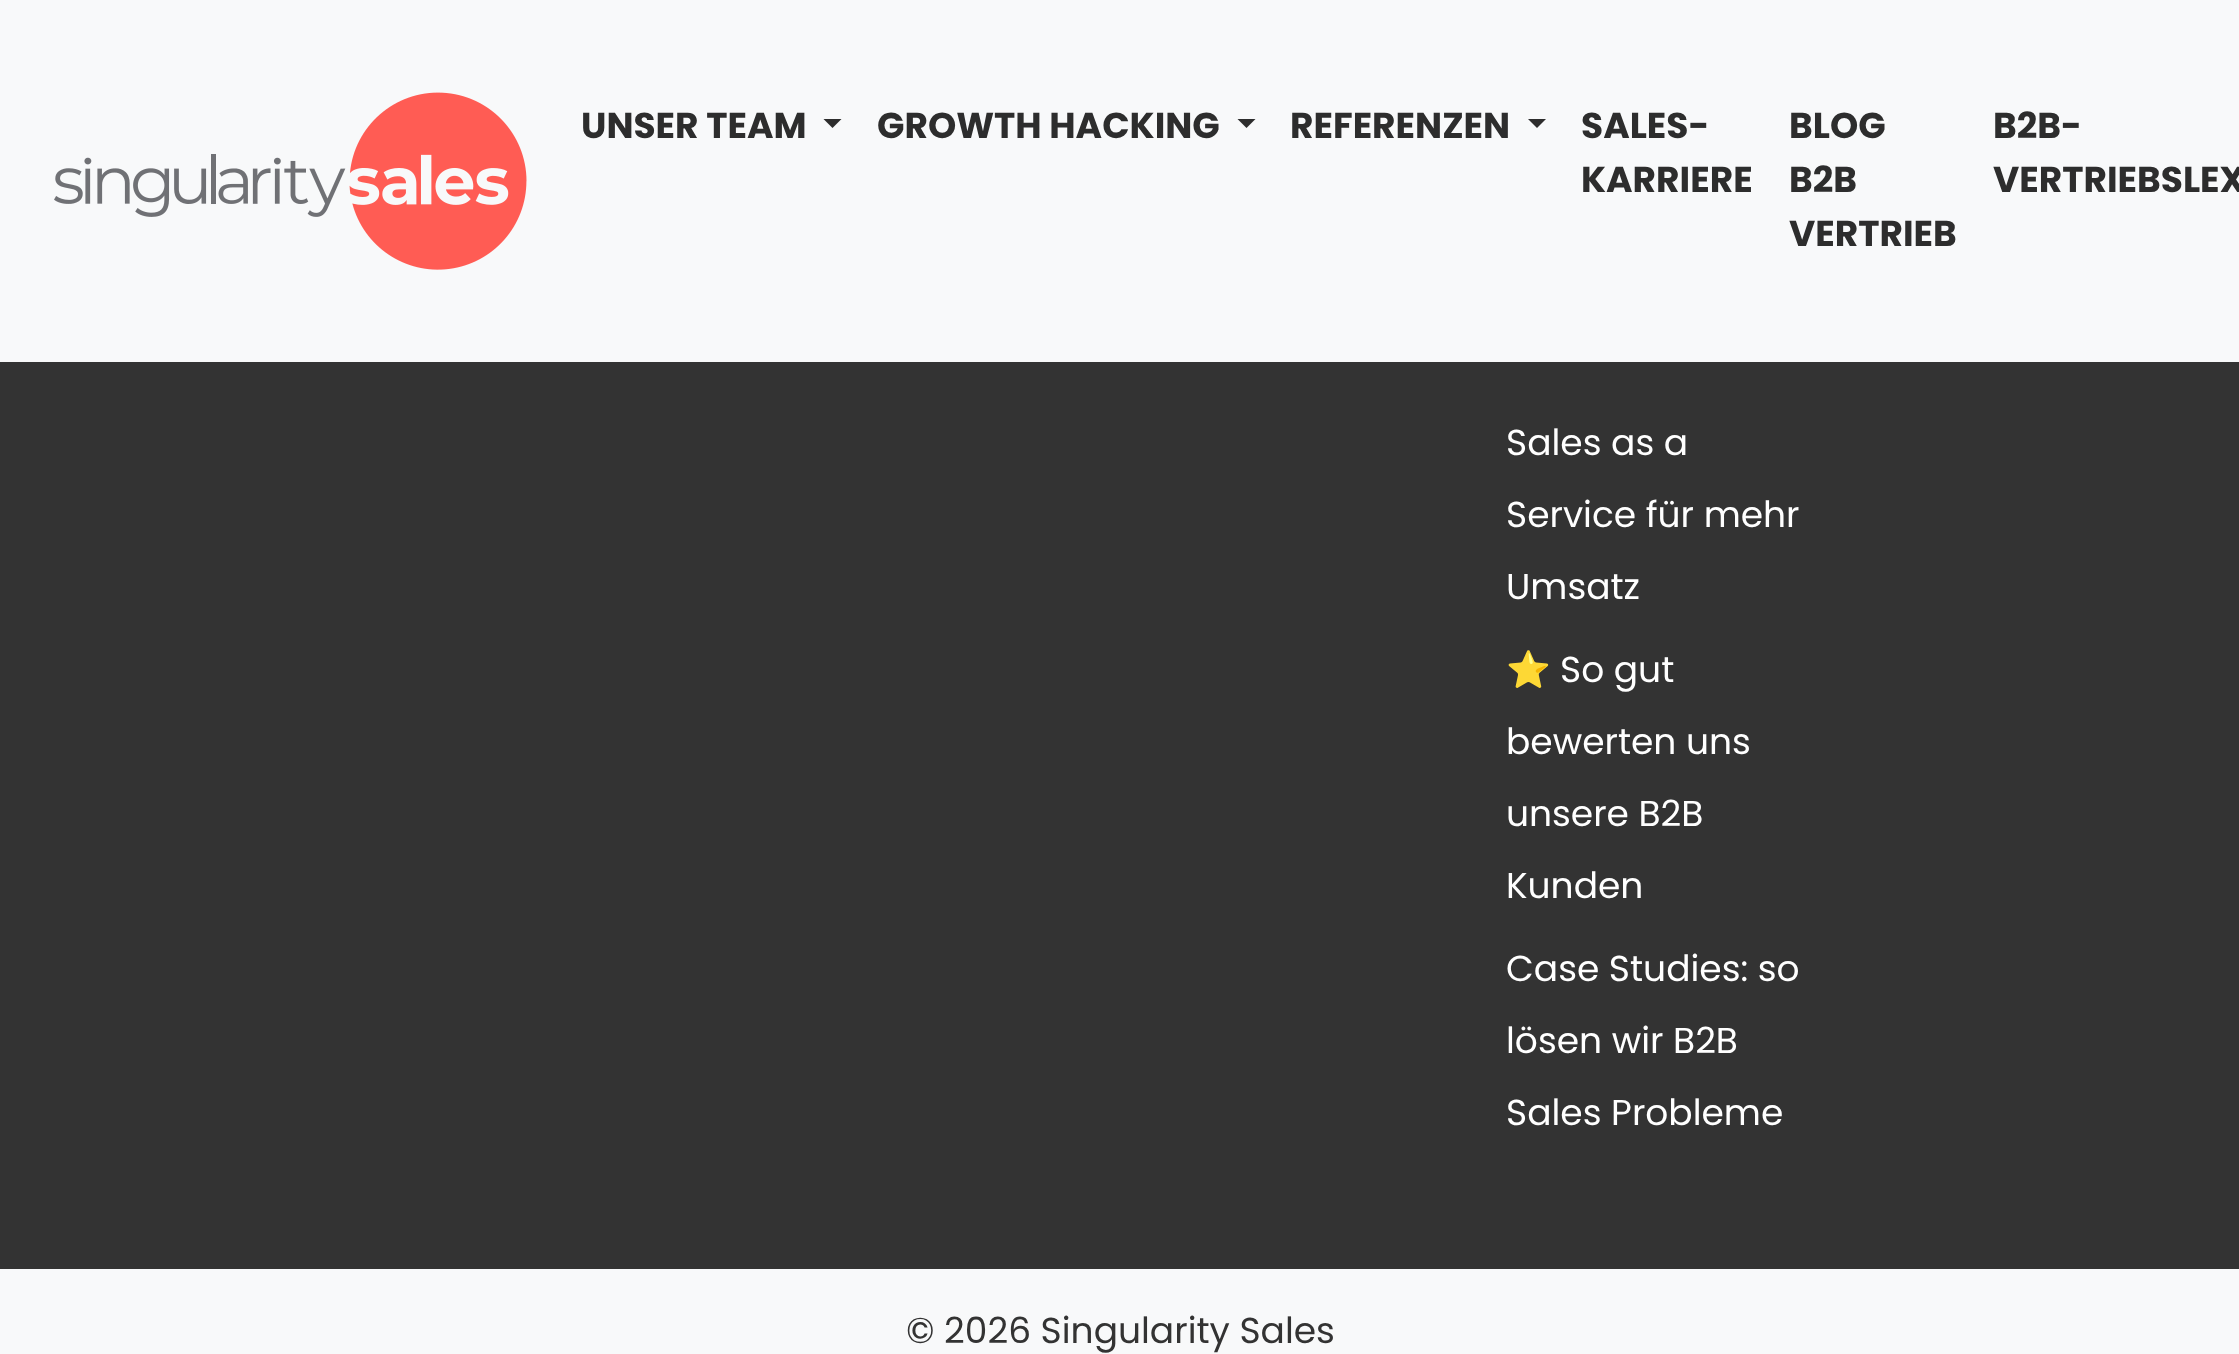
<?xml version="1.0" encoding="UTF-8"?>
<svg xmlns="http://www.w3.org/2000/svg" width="2239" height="1354">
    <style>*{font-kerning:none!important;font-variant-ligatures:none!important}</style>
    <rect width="100%" height="100%" fill="#333333"/>
    <rect x="0" y="0" width="2239" height="362" fill="#F8F9FA"/>
    <image x="54" y="92" width="473" height="178" href="img_01.png"/>
    <text x="581" y="138" font-family="Poppins" font-size="36" font-weight="700" fill="#2D2D2D">UNSER TEAM</text>
    <path d="M 823.5 119 H 841.5 L 832.5 128 Z" fill="#2D2D2D"/>
    <text x="877" y="138" font-family="Poppins" font-size="36" font-weight="700" fill="#2D2D2D">GROWTH HACKING</text>
    <path d="M 1237.5 119 H 1255.5 L 1246.5 128 Z" fill="#2D2D2D"/>
    <text x="1290" y="138" font-family="Poppins" font-size="36" font-weight="700" fill="#2D2D2D">REFERENZEN</text>
    <path d="M 1528 119 H 1546 L 1537 128 Z" fill="#2D2D2D"/>
    <text font-family="Poppins" font-size="36" font-weight="700" fill="#2D2D2D">
        <tspan x="1581" y="138">SALES-</tspan>
        <tspan x="1581" y="192">KARRIERE</tspan>
    </text>
    <text font-family="Poppins" font-size="36" font-weight="700" fill="#2D2D2D">
        <tspan x="1789" y="138">BLOG</tspan>
        <tspan x="1789" y="192">B2B</tspan>
        <tspan x="1789" y="246">VERTRIEB</tspan>
    </text>
    <text font-family="Poppins" font-size="36" font-weight="700" fill="#2D2D2D">
        <tspan x="1993" y="138">B2B-</tspan>
        <tspan x="1993" y="192">VERTRIEBSLEX</tspan>
    </text>
    <text x="1506" y="455" font-family="Poppins" font-size="36" fill="#FFFFFF">Sales as a</text>
    <text x="1506" y="527" font-family="Poppins" font-size="36" fill="#FFFFFF">Service für mehr</text>
    <text x="1506" y="599" font-family="Poppins" font-size="36" fill="#FFFFFF">Umsatz</text>
    <text x="1506" y="682" font-family="Noto Color Emoji" font-size="36" fill="#FFFFFF">⭐</text>
    <text x="1560" y="682" font-family="Poppins" font-size="36" fill="#FFFFFF">So gut</text>
    <text x="1506" y="754" font-family="Poppins" font-size="36" fill="#FFFFFF">bewerten uns</text>
    <text x="1506" y="826" font-family="Poppins" font-size="36" fill="#FFFFFF">unsere B2B</text>
    <text x="1506" y="898" font-family="Poppins" font-size="36" fill="#FFFFFF">Kunden</text>
    <text x="1506" y="981" font-family="Poppins" font-size="36" fill="#FFFFFF">Case Studies: so</text>
    <text x="1506" y="1053" font-family="Poppins" font-size="36" fill="#FFFFFF">lösen wir B2B</text>
    <text x="1506" y="1125" font-family="Poppins" font-size="36" fill="#FFFFFF">Sales Probleme</text>
    <rect x="0" y="1269" width="2239" height="85" fill="#F8F9FA"/>
    <text x="906" y="1343" font-family="Poppins" font-size="36" fill="#333333">© 2026 Singularity Sales</text>
</svg>
